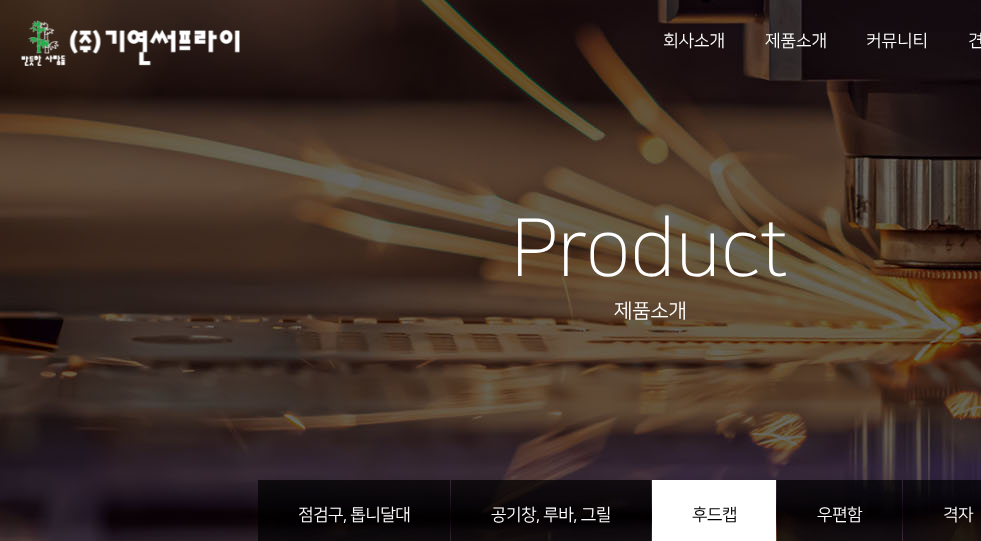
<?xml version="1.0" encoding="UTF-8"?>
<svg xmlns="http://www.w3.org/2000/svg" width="981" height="541">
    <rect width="100%" height="100%" fill="#FFFFFF"/>
    <image x="0" y="0" width="981" height="541" href="img_01.png"/>
    <image x="21" y="20" width="219" height="46" href="img_02.png"/>
    <text x="663" y="46" font-family="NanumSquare" font-size="17" fill="#FFFFFF">회사소개</text>
    <text x="765" y="46" font-family="NanumSquare" font-size="17" fill="#FFFFFF">제품소개</text>
    <text x="866" y="46" font-family="NanumSquare" font-size="17" fill="#FFFFFF">커뮤니티</text>
    <text x="968" y="46" font-family="NanumSquare" font-size="17" fill="#FFFFFF">견</text>
    <text x="511" y="274" font-family="NanumSquare" font-size="80" font-weight="300" fill="#FFFFFF">Product</text>
    <text x="614" y="317" font-family="NanumSquare" font-size="20" fill="#FFFFFF">제품소개</text>
    <rect x="258" y="480" width="192" height="61" fill="#000000" fill-opacity="0.7"/>
    <text x="298" y="520" font-family="NanumSquare" font-size="17" letter-spacing="-0.5" fill="#FFFFFF">점검구, 톱니달대</text>
    <rect x="451" y="480" width="200" height="61" fill="#000000" fill-opacity="0.7"/>
    <text x="491" y="520" font-family="NanumSquare" font-size="17" letter-spacing="-0.5" fill="#FFFFFF">공기창, 루바, 그릴</text>
    <rect x="652" y="480" width="124" height="61" fill="#FFFFFF"/>
    <text x="692" y="520" font-family="NanumSquare" font-size="17" letter-spacing="-0.5" fill="#000000">후드캡</text>
    <rect x="777" y="480" width="125" height="61" fill="#000000" fill-opacity="0.7"/>
    <text x="817" y="520" font-family="NanumSquare" font-size="17" letter-spacing="-0.5" fill="#FFFFFF">우편함</text>
    <rect x="903" y="480" width="78" height="61" fill="#000000" fill-opacity="0.7"/>
    <text x="943" y="520" font-family="NanumSquare" font-size="17" letter-spacing="-0.5" fill="#FFFFFF">격자</text>
</svg>
